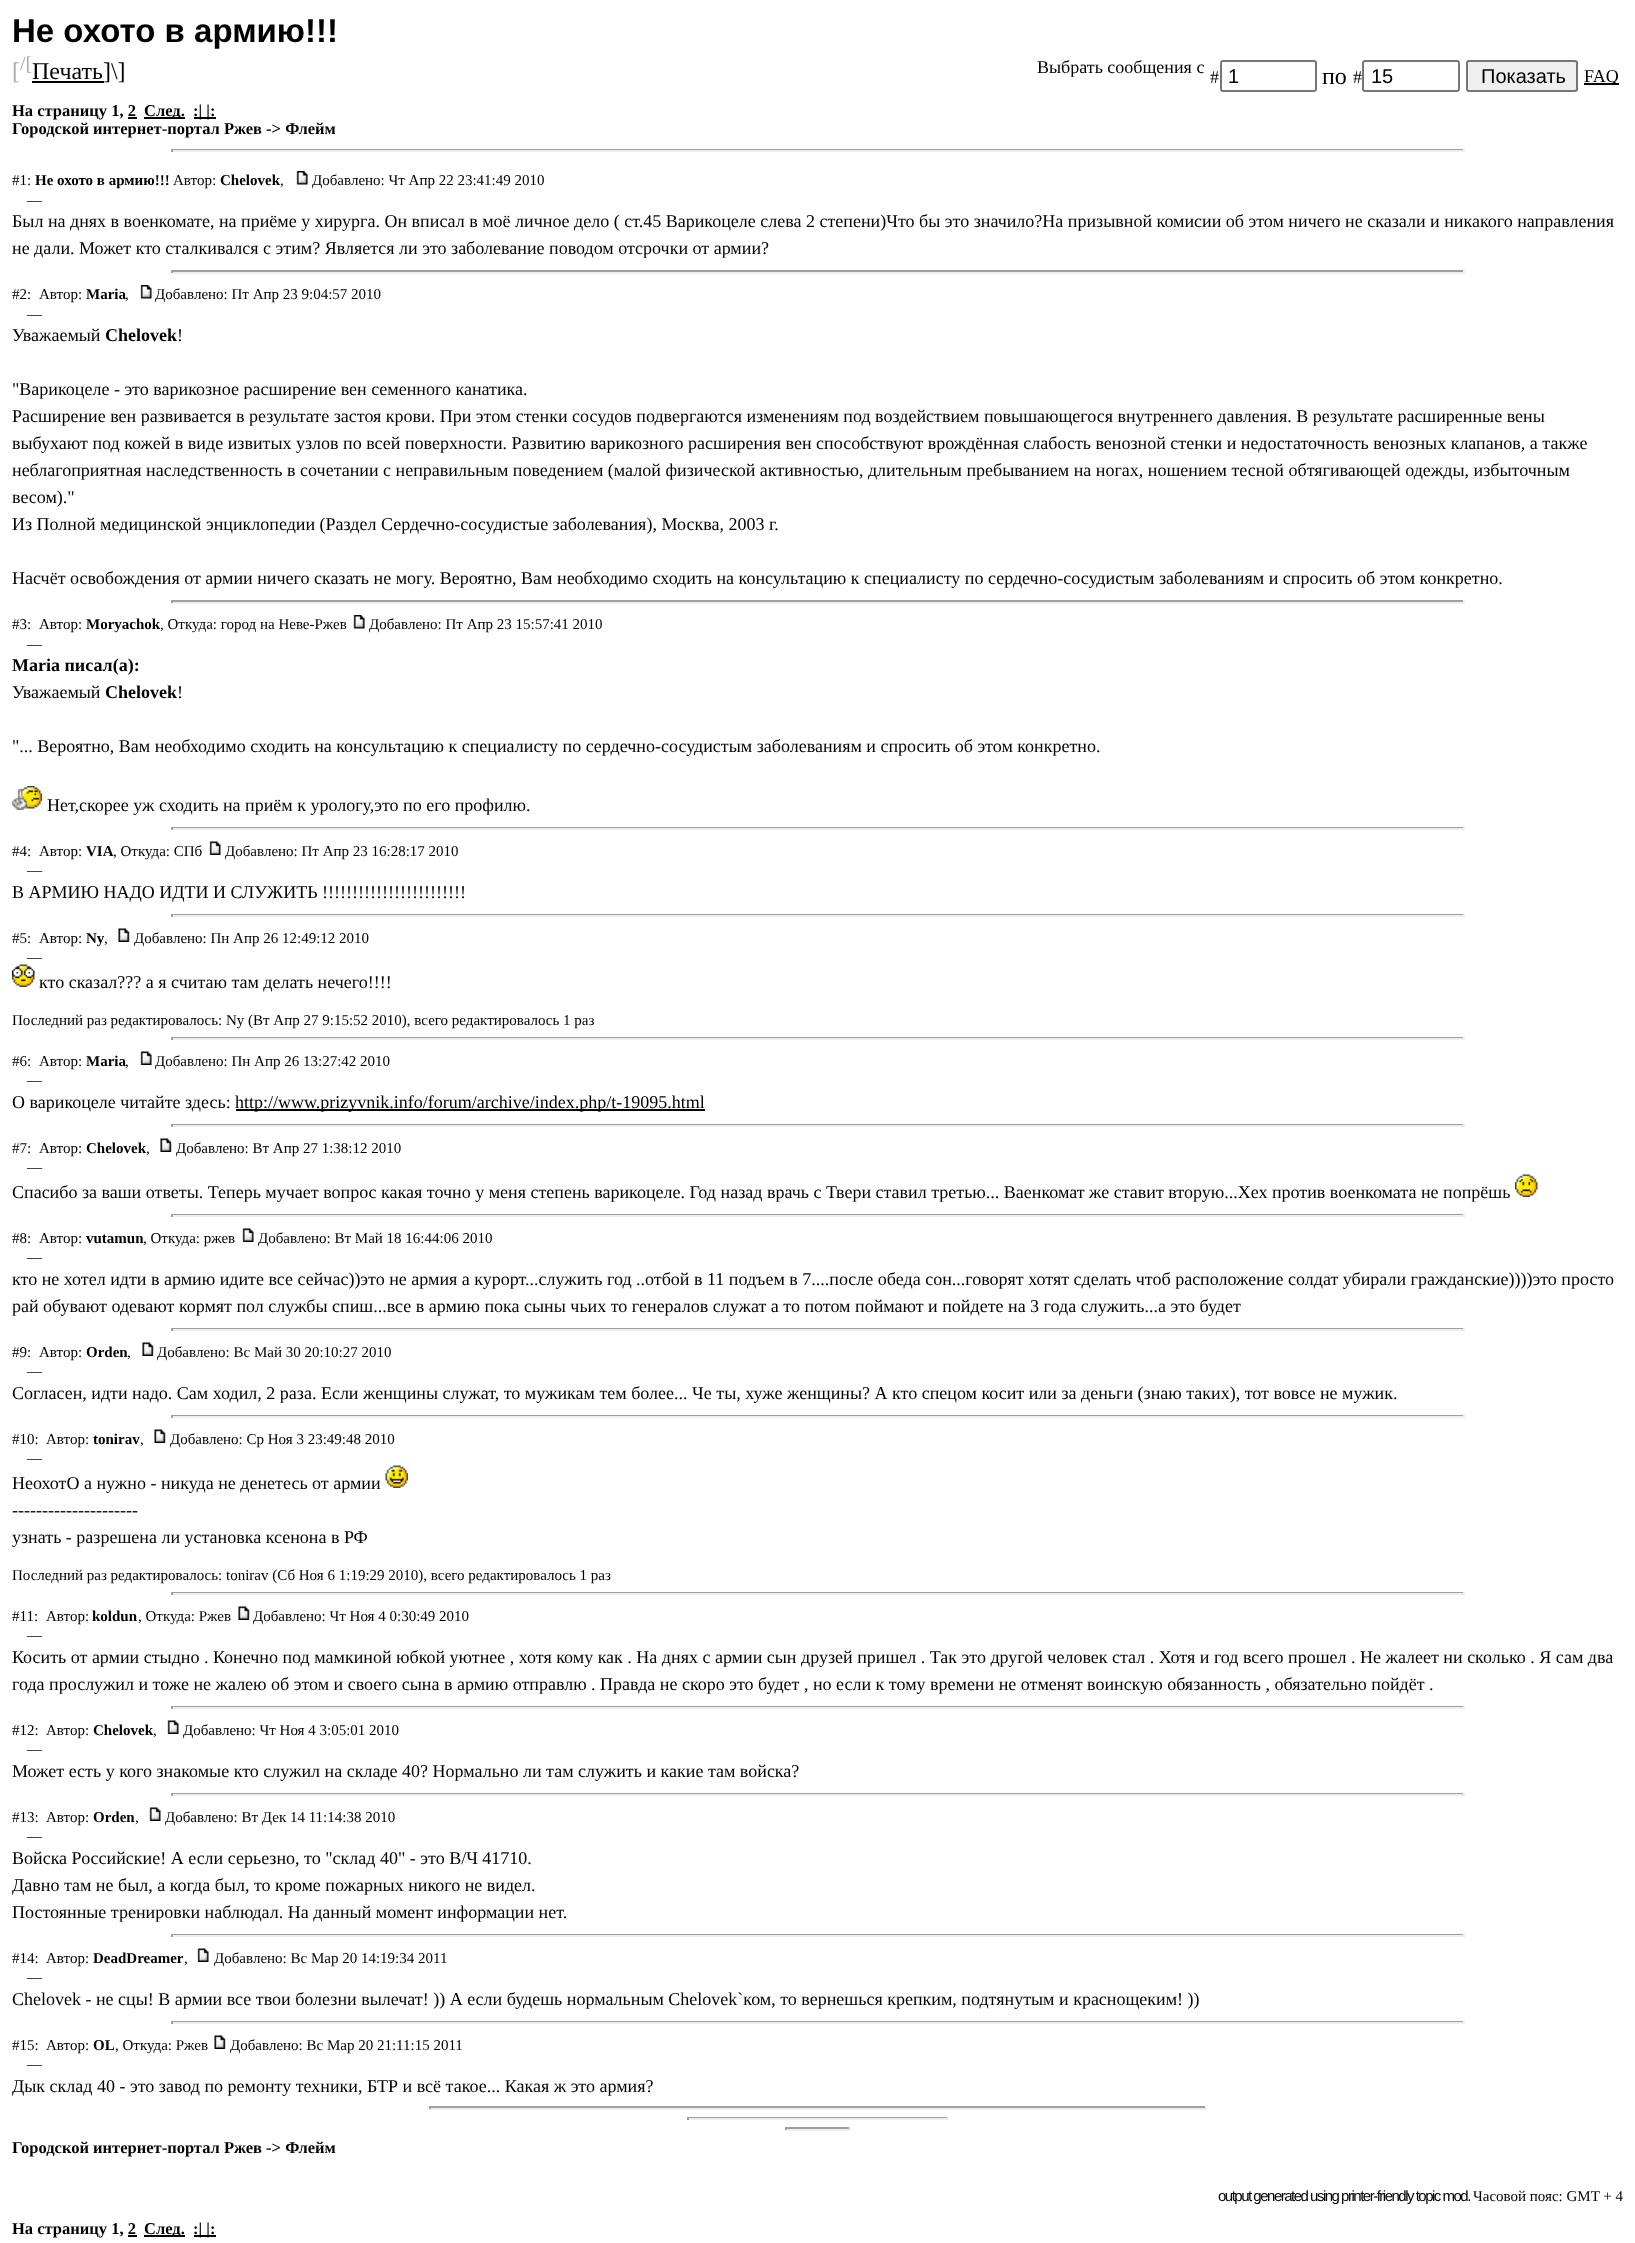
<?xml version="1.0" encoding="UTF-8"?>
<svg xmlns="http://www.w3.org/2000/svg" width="1635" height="2243">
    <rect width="100%" height="100%" fill="#FFFFFF"/>
    <text x="12" y="42" font-family="Liberation Sans" font-size="33" font-weight="700" fill="#000000">Не охото в армию!!!</text>
    <text x="12" y="79" font-family="Liberation Serif" font-size="24" fill="#AAAAAA">[</text>
    <text x="20" y="70" font-family="Liberation Serif" font-size="20" fill="#AAAAAA">/[</text>
    <rect x="32" y="81" width="72" height="2" fill="#000000"/>
    <text x="32" y="79" font-family="Liberation Serif" font-size="24" fill="#000000">Печать]\]</text>
    <text x="1037" y="73" font-family="Liberation Serif" font-size="18" fill="#000000">Выбрать сообщения с</text>
    <text x="1210" y="83" font-family="Liberation Serif" font-size="18" fill="#000000">#</text>
    <rect x="1221" y="61" width="95" height="30" rx="2" fill="none" stroke="#767676" stroke-width="2"/>
    <text x="1228" y="83" font-family="Liberation Sans" font-size="20" fill="#000000">1</text>
    <text x="1322" y="84" font-family="Liberation Serif" font-size="24" fill="#000000">по</text>
    <text x="1353" y="83" font-family="Liberation Serif" font-size="18" fill="#000000">#</text>
    <rect x="1363" y="61" width="96" height="30" rx="2" fill="none" stroke="#767676" stroke-width="2"/>
    <text x="1371" y="83" font-family="Liberation Sans" font-size="20" fill="#000000">15</text>
    <rect x="1467" y="61" width="110" height="30" rx="2" fill="#EFEFEF" stroke="#767676" stroke-width="2"/>
    <text x="1481" y="83" font-family="Liberation Sans" font-size="20" fill="#000000">Показать</text>
    <rect x="1584" y="83" width="35" height="2" fill="#000000"/>
    <text x="1584" y="82" font-family="Liberation Serif" font-size="18" fill="#000000">FAQ</text>
    <text x="12" y="116" font-family="Liberation Serif" font-size="16.5" font-weight="700" fill="#000000">На страницу 1, 2</text>
    <rect x="128" y="117" width="9" height="2" fill="#000000"/>
    <rect x="144" y="117" width="41" height="2" fill="#000000"/>
    <text x="144" y="116" font-family="Liberation Serif" font-size="16.5" font-weight="700" fill="#000000">След.</text>
    <rect x="194" y="117" width="22" height="2" fill="#000000"/>
    <text x="193" y="116" font-family="Liberation Serif" font-size="16.5" font-weight="700" fill="#000000">:| |:</text>
    <text x="12" y="134" font-family="Liberation Serif" font-size="16.5" font-weight="700" fill="#000000">Городской интернет-портал Ржев -&gt; Флейм</text>
    <rect x="171" y="149" width="1293" height="1" fill="#9F9F9F"/>
    <rect x="1463" y="149" width="2" height="3" fill="#EEEEEE"/>
    <rect x="171" y="150" width="1293" height="2" fill="#EEEEEE"/>
    <rect x="171" y="149" width="2" height="3" fill="#9F9F9F"/>
    <image x="296" y="171" width="12" height="14" href="img_01.png"/>
    <text x="312" y="185" font-family="Liberation Serif" font-size="15" fill="#000000">Добавлено: Чт Апр 22 23:41:49 2010</text>
    <text x="27" y="205" font-family="Liberation Serif" font-size="15" fill="#000000">—</text>
    <text font-family="Liberation Serif" font-size="18" fill="#000000">
        <tspan x="12" y="227">Был на днях в военкомате, на приёме у хирурга. Он вписал в моё личное дело ( ст.45 Варикоцеле слева 2 степени)Что бы это значило?На призывной комисии об этом ничего не сказали и никакого направления</tspan>
        <tspan x="12" y="254">не дали. Может кто сталкивался с этим? Является ли это заболевание поводом отсрочки от армии?</tspan>
    </text>
    <rect x="171" y="270" width="1293" height="2" fill="#9F9F9F"/>
    <rect x="1463" y="270" width="2" height="3" fill="#EEEEEE"/>
    <rect x="171" y="272" width="1293" height="2" fill="#EEEEEE"/>
    <rect x="171" y="270" width="2" height="3" fill="#9F9F9F"/>
    <image x="140" y="285" width="12" height="14" href="img_02.png"/>
    <text x="155" y="299" font-family="Liberation Serif" font-size="15" fill="#000000">Добавлено: Пт Апр 23 9:04:57 2010</text>
    <text x="27" y="319" font-family="Liberation Serif" font-size="15" fill="#000000">—</text>
    <text x="12" y="341" font-family="Liberation Serif" font-size="18" fill="#000000">Уважаемый</text>
    <text x="105" y="341" font-family="Liberation Serif" font-size="18" font-weight="700" fill="#000000">Chelovek</text>
    <text x="177" y="341" font-family="Liberation Serif" font-size="18" fill="#000000">!</text>
    <text font-family="Liberation Serif" font-size="18" fill="#000000">
        <tspan x="12" y="395">"Варикоцеле - это варикозное расширение вен семенного канатика.</tspan>
        <tspan x="12" y="422">Расширение вен развивается в результате застоя крови. При этом стенки сосудов подвергаются изменениям под воздействием повышающегося внутреннего давления. В результате расширенные вены</tspan>
        <tspan x="12" y="449">выбухают под кожей в виде извитых узлов по всей поверхности. Развитию варикозного расширения вен способствуют врождённая слабость венозной стенки и недостаточность венозных клапанов, а также</tspan>
        <tspan x="12" y="476">неблагоприятная наследственность в сочетании с неправильным поведением (малой физической активностью, длительным пребыванием на ногах, ношением тесной обтягивающей одежды, избыточным</tspan>
        <tspan x="12" y="503">весом)."</tspan>
        <tspan x="12" y="530">Из Полной медицинской энциклопедии (Раздел Сердечно-сосудистые заболевания), Москва, 2003 г.</tspan>
    </text>
    <text x="12" y="584" font-family="Liberation Serif" font-size="18" fill="#000000">Насчёт освобождения от армии ничего сказать не могу. Вероятно, Вам необходимо сходить на консультацию к специалисту по сердечно-сосудистым заболеваниям и спросить об этом конкретно.</text>
    <rect x="171" y="600" width="1293" height="2" fill="#9F9F9F"/>
    <rect x="1463" y="600" width="2" height="3" fill="#EEEEEE"/>
    <rect x="171" y="602" width="1293" height="2" fill="#EEEEEE"/>
    <rect x="171" y="600" width="2" height="3" fill="#9F9F9F"/>
    <image x="353" y="615" width="12" height="14" href="img_01.png"/>
    <text x="369" y="629" font-family="Liberation Serif" font-size="15" fill="#000000">Добавлено: Пт Апр 23 15:57:41 2010</text>
    <text x="27" y="649" font-family="Liberation Serif" font-size="15" fill="#000000">—</text>
    <text x="12" y="671" font-family="Liberation Serif" font-size="18" font-weight="700" fill="#000000">Maria писал(а):</text>
    <text x="12" y="698" font-family="Liberation Serif" font-size="18" fill="#000000">Уважаемый</text>
    <text x="105" y="698" font-family="Liberation Serif" font-size="18" font-weight="700" fill="#000000">Chelovek</text>
    <text x="177" y="698" font-family="Liberation Serif" font-size="18" fill="#000000">!</text>
    <text x="12" y="752" font-family="Liberation Serif" font-size="18" fill="#000000">"... Вероятно, Вам необходимо сходить на консультацию к специалисту по сердечно-сосудистым заболеваниям и спросить об этом конкретно.</text>
    <image x="12" y="786" width="30" height="24" href="img_03.png"/>
    <text x="47" y="811" font-family="Liberation Serif" font-size="18" fill="#000000">Нет,скорее уж сходить на приём к урологу,это по его профилю.</text>
    <rect x="171" y="827" width="1293" height="1" fill="#9F9F9F"/>
    <rect x="1463" y="827" width="2" height="3" fill="#EEEEEE"/>
    <rect x="171" y="828" width="1293" height="2" fill="#EEEEEE"/>
    <rect x="171" y="827" width="2" height="3" fill="#9F9F9F"/>
    <image x="209" y="841" width="12" height="14" href="img_04.png"/>
    <text x="225" y="856" font-family="Liberation Serif" font-size="15" fill="#000000">Добавлено: Пт Апр 23 16:28:17 2010</text>
    <text x="27" y="875" font-family="Liberation Serif" font-size="15" fill="#000000">—</text>
    <text x="12" y="898" font-family="Liberation Serif" font-size="18" fill="#000000">В АРМИЮ НАДО ИДТИ И СЛУЖИТЬ !!!!!!!!!!!!!!!!!!!!!!!!</text>
    <rect x="171" y="914" width="1293" height="1" fill="#9F9F9F"/>
    <rect x="1463" y="914" width="2" height="3" fill="#EEEEEE"/>
    <rect x="171" y="915" width="1293" height="2" fill="#EEEEEE"/>
    <rect x="171" y="914" width="2" height="3" fill="#9F9F9F"/>
    <image x="118" y="928" width="12" height="14" href="img_05.png"/>
    <text x="134" y="943" font-family="Liberation Serif" font-size="15" fill="#000000">Добавлено: Пн Апр 26 12:49:12 2010</text>
    <text x="27" y="962" font-family="Liberation Serif" font-size="15" fill="#000000">—</text>
    <image x="12" y="964" width="23" height="23" href="img_06.png"/>
    <text x="39" y="988" font-family="Liberation Serif" font-size="18" fill="#000000">кто сказал??? а я считаю там делать нечего!!!!</text>
    <text x="12" y="1025" font-family="Liberation Serif" font-size="15" fill="#000000">Последний раз редактировалось: Ny (Вт Апр 27 9:15:52 2010), всего редактировалось 1 раз</text>
    <rect x="171" y="1037" width="1293" height="1" fill="#9F9F9F"/>
    <rect x="1463" y="1037" width="2" height="3" fill="#EEEEEE"/>
    <rect x="171" y="1038" width="1293" height="2" fill="#EEEEEE"/>
    <rect x="171" y="1037" width="2" height="3" fill="#9F9F9F"/>
    <image x="140" y="1051" width="12" height="14" href="img_04.png"/>
    <text x="155" y="1066" font-family="Liberation Serif" font-size="15" fill="#000000">Добавлено: Пн Апр 26 13:27:42 2010</text>
    <text x="27" y="1085" font-family="Liberation Serif" font-size="15" fill="#000000">—</text>
    <text x="12" y="1108" font-family="Liberation Serif" font-size="18" fill="#000000">О варикоцеле читайте здесь:</text>
    <rect x="236" y="1109" width="469" height="2" fill="#000000"/>
    <text x="235" y="1108" font-family="Liberation Serif" font-size="18" fill="#000000">http://www.prizyvnik.info/forum/archive/index.php/t-19095.html</text>
    <rect x="171" y="1124" width="1293" height="1" fill="#9F9F9F"/>
    <rect x="1463" y="1124" width="2" height="3" fill="#EEEEEE"/>
    <rect x="171" y="1125" width="1293" height="2" fill="#EEEEEE"/>
    <rect x="171" y="1124" width="2" height="3" fill="#9F9F9F"/>
    <image x="160" y="1138" width="12" height="14" href="img_05.png"/>
    <text x="176" y="1153" font-family="Liberation Serif" font-size="15" fill="#000000">Добавлено: Вт Апр 27 1:38:12 2010</text>
    <text x="27" y="1172" font-family="Liberation Serif" font-size="15" fill="#000000">—</text>
    <text x="12" y="1198" font-family="Liberation Serif" font-size="18" fill="#000000">Спасибо за ваши ответы. Теперь мучает вопрос какая точно у меня степень варикоцеле. Год назад врачь с Твери ставил третью... Ваенкомат же ставит вторую...Хех против военкомата не попрёшь</text>
    <image x="1515" y="1174" width="23" height="23" href="img_07.png"/>
    <rect x="171" y="1214" width="1293" height="1" fill="#9F9F9F"/>
    <rect x="1463" y="1214" width="2" height="3" fill="#EEEEEE"/>
    <rect x="171" y="1215" width="1293" height="2" fill="#EEEEEE"/>
    <rect x="171" y="1214" width="2" height="3" fill="#9F9F9F"/>
    <image x="242" y="1228" width="12" height="14" href="img_04.png"/>
    <text x="258" y="1243" font-family="Liberation Serif" font-size="15" fill="#000000">Добавлено: Вт Май 18 16:44:06 2010</text>
    <text x="27" y="1262" font-family="Liberation Serif" font-size="15" fill="#000000">—</text>
    <text font-family="Liberation Serif" font-size="18" fill="#000000">
        <tspan x="12" y="1285">кто не хотел идти в армию идите все сейчас))это не армия а курорт...служить год ..отбой в 11 подъем в 7....после обеда сон...говорят хотят сделать чтоб расположение солдат убирали гражданские))))это просто</tspan>
        <tspan x="12" y="1312">рай обувают одевают кормят пол службы спиш...все в армию пока сыны чьих то генералов служат а то потом поймают и пойдете на 3 года служить...а это будет</tspan>
    </text>
    <rect x="171" y="1328" width="1293" height="1" fill="#9F9F9F"/>
    <rect x="1463" y="1328" width="2" height="3" fill="#EEEEEE"/>
    <rect x="171" y="1329" width="1293" height="2" fill="#EEEEEE"/>
    <rect x="171" y="1328" width="2" height="3" fill="#9F9F9F"/>
    <image x="142" y="1342" width="12" height="14" href="img_05.png"/>
    <text x="157" y="1357" font-family="Liberation Serif" font-size="15" fill="#000000">Добавлено: Вс Май 30 20:10:27 2010</text>
    <text x="27" y="1376" font-family="Liberation Serif" font-size="15" fill="#000000">—</text>
    <text x="12" y="1399" font-family="Liberation Serif" font-size="18" fill="#000000">Согласен, идти надо. Сам ходил, 2 раза. Если женщины служат, то мужикам тем более... Че ты, хуже женщины? А кто спецом косит или за деньги (знаю таких), тот вовсе не мужик.</text>
    <rect x="171" y="1415" width="1293" height="1" fill="#9F9F9F"/>
    <rect x="1463" y="1415" width="2" height="3" fill="#EEEEEE"/>
    <rect x="171" y="1416" width="1293" height="2" fill="#EEEEEE"/>
    <rect x="171" y="1415" width="2" height="3" fill="#9F9F9F"/>
    <image x="154" y="1429" width="12" height="14" href="img_05.png"/>
    <text x="170" y="1444" font-family="Liberation Serif" font-size="15" fill="#000000">Добавлено: Ср Ноя 3 23:49:48 2010</text>
    <text x="27" y="1463" font-family="Liberation Serif" font-size="15" fill="#000000">—</text>
    <text x="12" y="1489" font-family="Liberation Serif" font-size="18" fill="#000000">НеохотО а нужно - никуда не денетесь от армии</text>
    <image x="385" y="1465" width="23" height="23" href="img_08.png"/>
    <text font-family="Liberation Serif" font-size="18" fill="#000000">
        <tspan x="12" y="1516">---------------------</tspan>
        <tspan x="12" y="1543">узнать - разрешена ли установка ксенона в РФ</tspan>
    </text>
    <text x="12" y="1580" font-family="Liberation Serif" font-size="15" fill="#000000">Последний раз редактировалось: tonirav (Сб Ноя 6 1:19:29 2010), всего редактировалось 1 раз</text>
    <rect x="171" y="1592" width="1293" height="1" fill="#9F9F9F"/>
    <rect x="1463" y="1592" width="2" height="3" fill="#EEEEEE"/>
    <rect x="171" y="1593" width="1293" height="2" fill="#EEEEEE"/>
    <rect x="171" y="1592" width="2" height="3" fill="#9F9F9F"/>
    <image x="238" y="1606" width="12" height="14" href="img_05.png"/>
    <text x="253" y="1621" font-family="Liberation Serif" font-size="15" fill="#000000">Добавлено: Чт Ноя 4 0:30:49 2010</text>
    <text x="27" y="1640" font-family="Liberation Serif" font-size="15" fill="#000000">—</text>
    <text font-family="Liberation Serif" font-size="18" fill="#000000">
        <tspan x="12" y="1663">Косить от армии стыдно . Конечно под мамкиной юбкой уютнее , хотя кому как . На днях с армии сын друзей пришел . Так это другой человек стал . Хотя и год всего прошел . Не жалеет ни сколько . Я сам два</tspan>
        <tspan x="12" y="1690">года прослужил и тоже не жалею об этом и своего сына в армию отправлю . Правда не скоро это будет , но если к тому времени не отменят воинскую обязанность , обязательно пойдёт .</tspan>
    </text>
    <rect x="171" y="1706" width="1293" height="1" fill="#9F9F9F"/>
    <rect x="1463" y="1706" width="2" height="3" fill="#EEEEEE"/>
    <rect x="171" y="1707" width="1293" height="2" fill="#EEEEEE"/>
    <rect x="171" y="1706" width="2" height="3" fill="#9F9F9F"/>
    <image x="167" y="1720" width="12" height="14" href="img_04.png"/>
    <text x="183" y="1735" font-family="Liberation Serif" font-size="15" fill="#000000">Добавлено: Чт Ноя 4 3:05:01 2010</text>
    <text x="27" y="1754" font-family="Liberation Serif" font-size="15" fill="#000000">—</text>
    <text x="12" y="1777" font-family="Liberation Serif" font-size="18" fill="#000000">Может есть у кого знакомые кто служил на складе 40? Нормально ли там служить и какие там войска?</text>
    <rect x="171" y="1793" width="1293" height="1" fill="#9F9F9F"/>
    <rect x="1463" y="1793" width="2" height="3" fill="#EEEEEE"/>
    <rect x="171" y="1794" width="1293" height="2" fill="#EEEEEE"/>
    <rect x="171" y="1793" width="2" height="3" fill="#9F9F9F"/>
    <image x="149" y="1807" width="12" height="14" href="img_04.png"/>
    <text x="165" y="1822" font-family="Liberation Serif" font-size="15" fill="#000000">Добавлено: Вт Дек 14 11:14:38 2010</text>
    <text x="27" y="1841" font-family="Liberation Serif" font-size="15" fill="#000000">—</text>
    <text font-family="Liberation Serif" font-size="18" fill="#000000">
        <tspan x="12" y="1864">Войска Российские! А если серьезно, то "склад 40" - это В/Ч 41710.</tspan>
        <tspan x="12" y="1891">Давно там не был, а когда был, то кроме пожарных никого не видел.</tspan>
        <tspan x="12" y="1918">Постоянные тренировки наблюдал. На данный момент информации нет.</tspan>
    </text>
    <rect x="171" y="1934" width="1293" height="1" fill="#9F9F9F"/>
    <rect x="1463" y="1934" width="2" height="3" fill="#EEEEEE"/>
    <rect x="171" y="1935" width="1293" height="2" fill="#EEEEEE"/>
    <rect x="171" y="1934" width="2" height="3" fill="#9F9F9F"/>
    <image x="197" y="1948" width="12" height="14" href="img_04.png"/>
    <text x="214" y="1963" font-family="Liberation Serif" font-size="15" fill="#000000">Добавлено: Вс Мар 20 14:19:34 2011</text>
    <text x="27" y="1982" font-family="Liberation Serif" font-size="15" fill="#000000">—</text>
    <text x="12" y="2005" font-family="Liberation Serif" font-size="18" fill="#000000">Chelovek - не сцы! В армии все твои болезни вылечат! )) А если будешь нормальным Chelovek`ком, то вернешься крепким, подтянутым и краснощеким! ))</text>
    <rect x="171" y="2021" width="1293" height="1" fill="#9F9F9F"/>
    <rect x="1463" y="2021" width="2" height="3" fill="#EEEEEE"/>
    <rect x="171" y="2022" width="1293" height="2" fill="#EEEEEE"/>
    <rect x="171" y="2021" width="2" height="3" fill="#9F9F9F"/>
    <image x="214" y="2035" width="12" height="14" href="img_05.png"/>
    <text x="230" y="2050" font-family="Liberation Serif" font-size="15" fill="#000000">Добавлено: Вс Мар 20 21:11:15 2011</text>
    <text x="27" y="2069" font-family="Liberation Serif" font-size="15" fill="#000000">—</text>
    <text x="12" y="2092" font-family="Liberation Serif" font-size="18" fill="#000000">Дык склад 40 - это завод по ремонту техники, БТР и всё такое... Какая ж это армия?</text>
    <rect x="429" y="2106" width="777" height="2" fill="#9F9F9F"/>
    <rect x="1205" y="2106" width="2" height="3" fill="#EEEEEE"/>
    <rect x="429" y="2108" width="777" height="2" fill="#EEEEEE"/>
    <rect x="429" y="2106" width="2" height="3" fill="#9F9F9F"/>
    <rect x="687" y="2117" width="261" height="1" fill="#9F9F9F"/>
    <rect x="947" y="2117" width="2" height="3" fill="#EEEEEE"/>
    <rect x="687" y="2118" width="261" height="2" fill="#EEEEEE"/>
    <rect x="687" y="2117" width="2" height="3" fill="#9F9F9F"/>
    <rect x="785" y="2127" width="66" height="2" fill="#9F9F9F"/>
    <rect x="849" y="2127" width="2" height="3" fill="#EEEEEE"/>
    <rect x="785" y="2129" width="66" height="2" fill="#EEEEEE"/>
    <rect x="785" y="2127" width="2" height="3" fill="#9F9F9F"/>
    <text x="12" y="2153" font-family="Liberation Serif" font-size="16.5" font-weight="700" fill="#000000">Городской интернет-портал Ржев -&gt; Флейм</text>
    <text x="1218" y="2201" font-family="Liberation Sans" font-size="15" letter-spacing="-1.5" fill="#000000">output generated using printer-friendly topic mod.</text>
    <text x="1473" y="2201" font-family="Liberation Serif" font-size="15" fill="#000000">Часовой пояс: GMT + 4</text>
    <text x="12" y="2234" font-family="Liberation Serif" font-size="16.5" font-weight="700" fill="#000000">На страницу 1, 2</text>
    <rect x="128" y="2235" width="9" height="2" fill="#000000"/>
    <rect x="144" y="2235" width="41" height="2" fill="#000000"/>
    <text x="144" y="2234" font-family="Liberation Serif" font-size="16.5" font-weight="700" fill="#000000">След.</text>
    <rect x="194" y="2235" width="22" height="2" fill="#000000"/>
    <text x="193" y="2234" font-family="Liberation Serif" font-size="16.5" font-weight="700" fill="#000000">:| |:</text>
    <text x="12" y="2050" font-family="Liberation Serif" font-size="15" fill="#000000">#15:</text>
    <text x="46" y="2050" font-family="Liberation Serif" font-size="15" fill="#000000">Автор:</text>
    <text x="93" y="2050" font-family="Liberation Serif" font-size="15" font-weight="700" fill="#000000">OL</text>
    <text x="115" y="2050" font-family="Liberation Serif" font-size="15" fill="#000000">, Откуда: Ржев</text>
    <text x="12" y="1963" font-family="Liberation Serif" font-size="15" fill="#000000">#14:</text>
    <text x="46" y="1963" font-family="Liberation Serif" font-size="15" fill="#000000">Автор:</text>
    <text x="93" y="1963" font-family="Liberation Serif" font-size="15" font-weight="700" fill="#000000">DeadDreamer</text>
    <text x="184" y="1963" font-family="Liberation Serif" font-size="15" fill="#000000">,</text>
    <text x="12" y="1822" font-family="Liberation Serif" font-size="15" fill="#000000">#13:</text>
    <text x="46" y="1822" font-family="Liberation Serif" font-size="15" fill="#000000">Автор:</text>
    <text x="93" y="1822" font-family="Liberation Serif" font-size="15" font-weight="700" fill="#000000">Orden</text>
    <text x="135" y="1822" font-family="Liberation Serif" font-size="15" fill="#000000">,</text>
    <text x="12" y="1735" font-family="Liberation Serif" font-size="15" fill="#000000">#12:</text>
    <text x="46" y="1735" font-family="Liberation Serif" font-size="15" fill="#000000">Автор:</text>
    <text x="93" y="1735" font-family="Liberation Serif" font-size="15" font-weight="700" fill="#000000">Chelovek</text>
    <text x="153" y="1735" font-family="Liberation Serif" font-size="15" fill="#000000">,</text>
    <text x="12" y="1621" font-family="Liberation Serif" font-size="15" fill="#000000">#11:</text>
    <text x="46" y="1621" font-family="Liberation Serif" font-size="15" fill="#000000">Автор:</text>
    <text x="92" y="1621" font-family="Liberation Serif" font-size="15" font-weight="700" fill="#000000">koldun</text>
    <text x="138" y="1621" font-family="Liberation Serif" font-size="15" fill="#000000">, Откуда: Ржев</text>
    <text x="12" y="1444" font-family="Liberation Serif" font-size="15" fill="#000000">#10:</text>
    <text x="46" y="1444" font-family="Liberation Serif" font-size="15" fill="#000000">Автор:</text>
    <text x="93" y="1444" font-family="Liberation Serif" font-size="15" font-weight="700" fill="#000000">tonirav</text>
    <text x="140" y="1444" font-family="Liberation Serif" font-size="15" fill="#000000">,</text>
    <text x="12" y="1357" font-family="Liberation Serif" font-size="15" fill="#000000">#9:</text>
    <text x="39" y="1357" font-family="Liberation Serif" font-size="15" fill="#000000">Автор:</text>
    <text x="86" y="1357" font-family="Liberation Serif" font-size="15" font-weight="700" fill="#000000">Orden</text>
    <text x="127" y="1357" font-family="Liberation Serif" font-size="15" fill="#000000">,</text>
    <text x="12" y="1243" font-family="Liberation Serif" font-size="15" fill="#000000">#8:</text>
    <text x="39" y="1243" font-family="Liberation Serif" font-size="15" fill="#000000">Автор:</text>
    <text x="86" y="1243" font-family="Liberation Serif" font-size="15" font-weight="700" fill="#000000">vutamun</text>
    <text x="143" y="1243" font-family="Liberation Serif" font-size="15" fill="#000000">, Откуда: ржев</text>
    <text x="12" y="1153" font-family="Liberation Serif" font-size="15" fill="#000000">#7:</text>
    <text x="39" y="1153" font-family="Liberation Serif" font-size="15" fill="#000000">Автор:</text>
    <text x="86" y="1153" font-family="Liberation Serif" font-size="15" font-weight="700" fill="#000000">Chelovek</text>
    <text x="146" y="1153" font-family="Liberation Serif" font-size="15" fill="#000000">,</text>
    <text x="12" y="1066" font-family="Liberation Serif" font-size="15" fill="#000000">#6:</text>
    <text x="39" y="1066" font-family="Liberation Serif" font-size="15" fill="#000000">Автор:</text>
    <text x="86" y="1066" font-family="Liberation Serif" font-size="15" font-weight="700" fill="#000000">Maria</text>
    <text x="125" y="1066" font-family="Liberation Serif" font-size="15" fill="#000000">,</text>
    <text x="12" y="943" font-family="Liberation Serif" font-size="15" fill="#000000">#5:</text>
    <text x="39" y="943" font-family="Liberation Serif" font-size="15" fill="#000000">Автор:</text>
    <text x="86" y="943" font-family="Liberation Serif" font-size="15" font-weight="700" fill="#000000">Ny</text>
    <text x="104" y="943" font-family="Liberation Serif" font-size="15" fill="#000000">,</text>
    <text x="12" y="856" font-family="Liberation Serif" font-size="15" fill="#000000">#4:</text>
    <text x="39" y="856" font-family="Liberation Serif" font-size="15" fill="#000000">Автор:</text>
    <text x="86" y="856" font-family="Liberation Serif" font-size="15" font-weight="700" fill="#000000">VIA</text>
    <text x="113" y="856" font-family="Liberation Serif" font-size="15" fill="#000000">, Откуда: СПб</text>
    <text x="12" y="629" font-family="Liberation Serif" font-size="15" fill="#000000">#3:</text>
    <text x="39" y="629" font-family="Liberation Serif" font-size="15" fill="#000000">Автор:</text>
    <text x="86" y="629" font-family="Liberation Serif" font-size="15" font-weight="700" fill="#000000">Moryachok</text>
    <text x="160" y="629" font-family="Liberation Serif" font-size="15" fill="#000000">, Откуда: город на Неве-Ржев</text>
    <text x="12" y="299" font-family="Liberation Serif" font-size="15" fill="#000000">#2:</text>
    <text x="39" y="299" font-family="Liberation Serif" font-size="15" fill="#000000">Автор:</text>
    <text x="86" y="299" font-family="Liberation Serif" font-size="15" font-weight="700" fill="#000000">Maria</text>
    <text x="125" y="299" font-family="Liberation Serif" font-size="15" fill="#000000">,</text>
    <text x="12" y="185" font-family="Liberation Serif" font-size="15" fill="#000000">#1:</text>
    <text x="35" y="185" font-family="Liberation Serif" font-size="15" font-weight="700" fill="#000000">Не охото в армию!!!</text>
    <text x="173" y="185" font-family="Liberation Serif" font-size="15" fill="#000000">Автор:</text>
    <text x="220" y="185" font-family="Liberation Serif" font-size="15" font-weight="700" fill="#000000">Chelovek</text>
    <text x="280" y="185" font-family="Liberation Serif" font-size="15" fill="#000000">,</text>
</svg>
